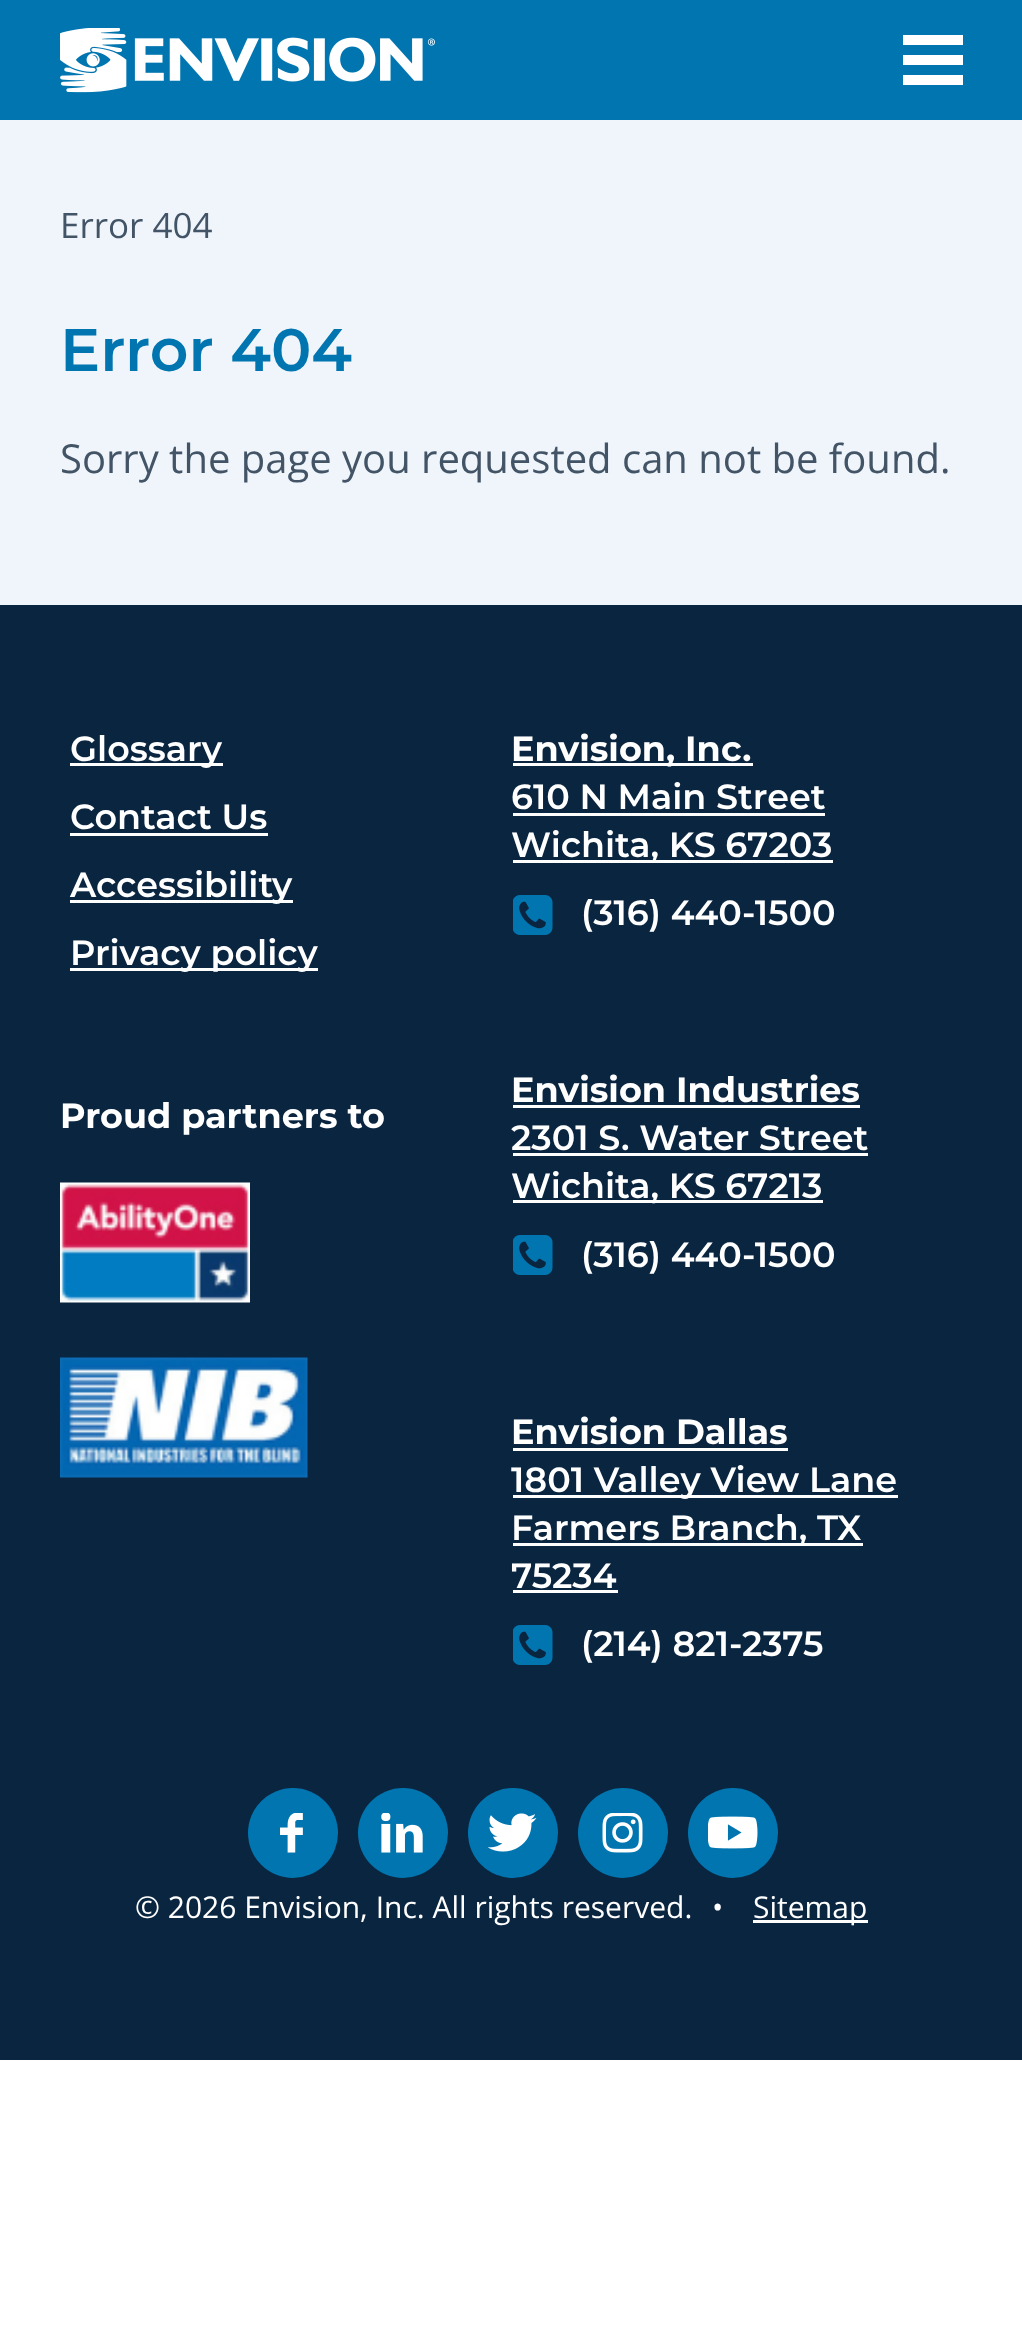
<?xml version="1.0" encoding="UTF-8"?>
<svg xmlns="http://www.w3.org/2000/svg" width="1022" height="2334">
    <rect width="100%" height="100%" fill="#FFFFFF"/>
    <rect x="0" y="0" width="1022" height="120" fill="#0075B0"/>
    <image x="60" y="28" width="375" height="65" href="img_01.png"/>
    <rect x="903" y="55" width="60" height="10" fill="#FFFFFF"/>
    <rect x="903" y="35" width="60" height="10" fill="#FFFFFF"/>
    <rect x="903" y="75" width="60" height="10" fill="#FFFFFF"/>
    <rect x="0" y="120" width="1022" height="485" fill="#EFF5FB"/>
    <text x="60" y="238" font-family="Open Sans" font-size="35" fill="#425466">Error 404</text>
    <text x="60" y="371" font-family="Montserrat" font-size="60" font-weight="600" fill="#0075B0">Error 404</text>
    <text x="60" y="473" font-family="Open Sans" font-size="40" fill="#425466">Sorry the page you requested can not be found.</text>
    <rect x="0" y="605" width="1022" height="1455" fill="#0A2540"/>
    <rect x="70" y="763" width="153" height="3" fill="#FFFFFF"/>
    <text font-family="Montserrat" font-size="35" font-weight="600" fill="#FFFFFF">
        <tspan x="70" y="761">Glossary</tspan>
        <tspan x="70" y="829">Contact Us</tspan>
    </text>
    <rect x="70" y="833" width="198" height="3" fill="#FFFFFF"/>
    <rect x="70" y="900" width="223" height="3" fill="#FFFFFF"/>
    <text x="70" y="897" font-family="Montserrat" font-size="35" font-weight="600" fill="#FFFFFF">Accessibility</text>
    <rect x="70" y="968" width="248" height="3" fill="#FFFFFF"/>
    <text x="70" y="965" font-family="Montserrat" font-size="35" font-weight="600" fill="#FFFFFF">Privacy policy</text>
    <text x="60" y="1128" font-family="Montserrat" font-size="35" font-weight="700" fill="#FFFFFF">Proud partners to</text>
    <image x="60" y="1182" width="190" height="121" href="img_02.png"/>
    <image x="60" y="1357" width="248" height="121" href="img_03.png"/>
    <rect x="513" y="763" width="240" height="3" fill="#FFFFFF"/>
    <text x="511" y="761" font-family="Montserrat" font-size="35" font-weight="700" fill="#FFFFFF">Envision, Inc.</text>
    <text x="511" y="809" font-family="Montserrat" font-size="35" font-weight="600" fill="#FFFFFF">610 N Main Street</text>
    <rect x="513" y="813" width="312" height="3" fill="#FFFFFF"/>
    <rect x="513" y="860" width="320" height="3" fill="#FFFFFF"/>
    <text x="511" y="857" font-family="Montserrat" font-size="35" font-weight="600" fill="#FFFFFF">Wichita, KS 67203</text>
    <image x="513" y="895" width="40" height="40" href="img_04.png"/>
    <text x="581" y="925" font-family="Montserrat" font-size="35" font-weight="600" fill="#FFFFFF">(316) 440-1500</text>
    <text x="511" y="1102" font-family="Montserrat" font-size="35" font-weight="700" fill="#FFFFFF">Envision Industries</text>
    <rect x="513" y="1105" width="347" height="3" fill="#FFFFFF"/>
    <text x="511" y="1150" font-family="Montserrat" font-size="35" font-weight="600" fill="#FFFFFF">2301 S. Water Street</text>
    <rect x="513" y="1153" width="355" height="3" fill="#FFFFFF"/>
    <rect x="513" y="1200" width="310" height="3" fill="#FFFFFF"/>
    <text x="511" y="1198" font-family="Montserrat" font-size="35" font-weight="600" fill="#FFFFFF">Wichita, KS 67213</text>
    <image x="513" y="1235" width="40" height="40" href="img_04.png"/>
    <text x="581" y="1267" font-family="Montserrat" font-size="35" font-weight="600" fill="#FFFFFF">(316) 440-1500</text>
    <text x="511" y="1444" font-family="Montserrat" font-size="35" font-weight="700" fill="#FFFFFF">Envision Dallas</text>
    <rect x="513" y="1448" width="275" height="3" fill="#FFFFFF"/>
    <rect x="513" y="1495" width="385" height="3" fill="#FFFFFF"/>
    <text x="511" y="1492" font-family="Montserrat" font-size="35" font-weight="600" fill="#FFFFFF">1801 Valley View Lane</text>
    <rect x="513" y="1543" width="350" height="3" fill="#FFFFFF"/>
    <text font-family="Montserrat" font-size="35" font-weight="600" fill="#FFFFFF">
        <tspan x="511" y="1540">Farmers Branch, TX</tspan>
        <tspan x="511" y="1588">75234</tspan>
    </text>
    <rect x="513" y="1590" width="105" height="3" fill="#FFFFFF"/>
    <image x="513" y="1625" width="40" height="40" href="img_04.png"/>
    <text x="581" y="1656" font-family="Montserrat" font-size="35" font-weight="600" fill="#FFFFFF">(214) 821-2375</text>
    <circle cx="293" cy="1833" r="45" fill="#0075B0"/>
    <image x="280" y="1813" width="23" height="40" href="img_05.png"/>
    <circle cx="403" cy="1833" r="45" fill="#0075B0"/>
    <image x="381" y="1813" width="42" height="40" href="img_06.png"/>
    <circle cx="513" cy="1833" r="45" fill="#0075B0"/>
    <image x="488" y="1813" width="49" height="39" href="img_07.png"/>
    <circle cx="623" cy="1833" r="45" fill="#0075B0"/>
    <image x="602" y="1813" width="41" height="40" href="img_08.png"/>
    <circle cx="733" cy="1833" r="45" fill="#0075B0"/>
    <image x="708" y="1816" width="50" height="33" href="img_09.png"/>
    <text x="135" y="1918" font-family="Open Sans" font-size="30" fill="#FFFFFF">© 2026 Envision, Inc. All rights reserved.</text>
    <text x="712" y="1918" font-family="Open Sans" font-size="30" fill="#FFFFFF">•</text>
    <rect x="753" y="1920" width="115" height="3" fill="#FFFFFF"/>
    <text x="753" y="1918" font-family="Open Sans" font-size="30" fill="#FFFFFF">Sitemap</text>
</svg>
